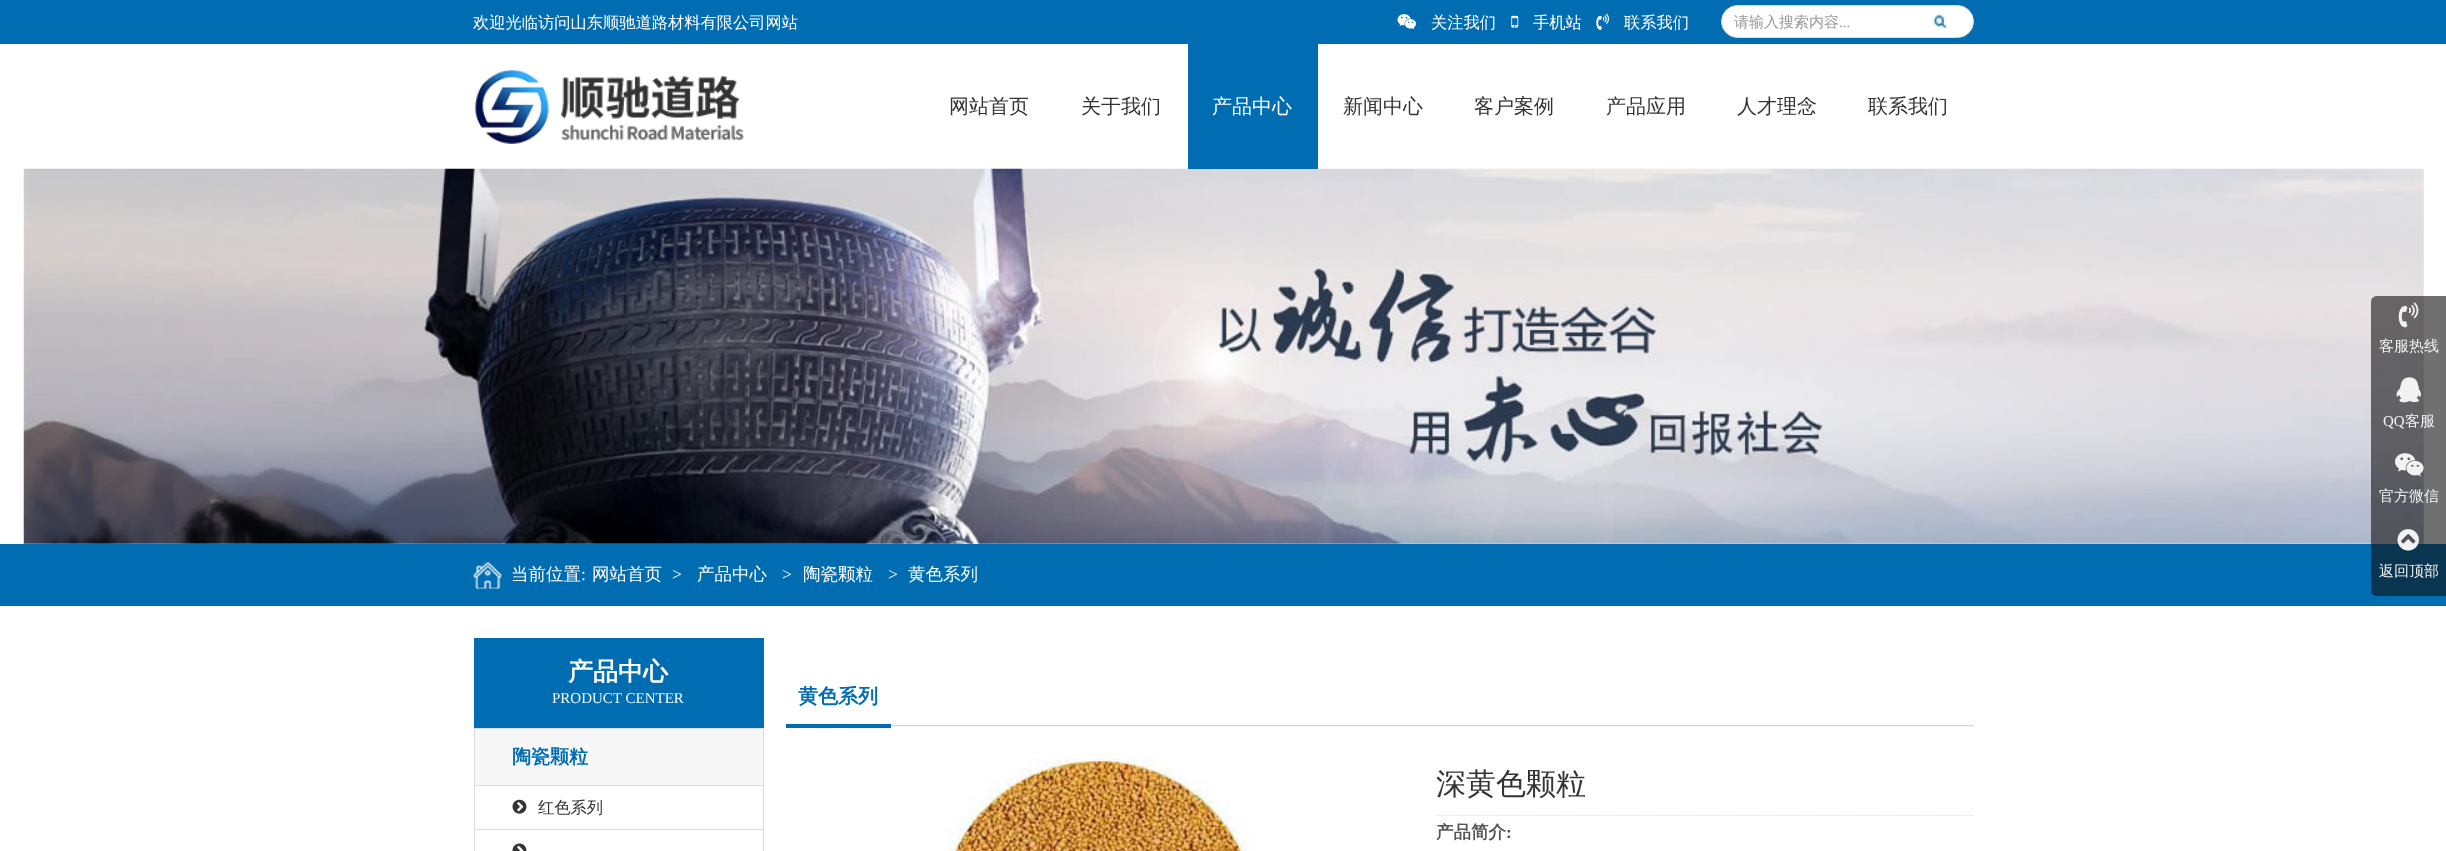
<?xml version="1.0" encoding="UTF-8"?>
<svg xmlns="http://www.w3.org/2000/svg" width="2446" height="851">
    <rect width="100%" height="100%" fill="#FFFFFF"/>
    <rect x="0" y="0" width="2446" height="44" fill="#006CB2"/>
    <text x="473" y="28" font-family="WenQuanYi Zen Hei" font-size="16.25" font-weight="500" fill="#FFFFFF">欢迎光临访问山东顺驰道路材料有限公司网站</text>
    <image x="1397" y="14" width="20" height="16" href="img_01.png"/>
    <text x="1431" y="28" font-family="WenQuanYi Zen Hei" font-size="16.25" font-weight="500" fill="#FFFFFF">关注我们</text>
    <image x="1511" y="15" width="8" height="13" href="img_02.png"/>
    <text x="1533" y="28" font-family="WenQuanYi Zen Hei" font-size="16.25" font-weight="500" fill="#FFFFFF">手机站</text>
    <image x="1596" y="13" width="13" height="17" href="img_03.png"/>
    <text x="1624" y="28" font-family="WenQuanYi Zen Hei" font-size="16.25" font-weight="500" fill="#FFFFFF">联系我们</text>
    <rect x="1721.5" y="5.5" width="252" height="32" rx="16" fill="#FFFFFF" stroke="#DDDDDD"/>
    <text x="1734" y="27" font-family="WenQuanYi Zen Hei" font-size="15" font-weight="500" fill="#999999">请输入搜索内容</text>
    <text x="1839" y="27" font-family="Liberation Serif" font-size="15" fill="#999999">...</text>
    <rect x="1959" y="6" width="1" height="1" fill="#FFFFFF"/>
    <image x="1933" y="13" width="15" height="17" href="img_04.png"/>
    <image x="474" y="69" width="270" height="75" href="img_05.png"/>
    <text x="949" y="113" font-family="WenQuanYi Zen Hei" font-size="20" font-weight="500" fill="#333333">网站首页</text>
    <text x="1081" y="113" font-family="WenQuanYi Zen Hei" font-size="20" font-weight="500" fill="#333333">关于我们</text>
    <image x="23" y="168" width="2401" height="376" href="img_06.png"/>
    <rect x="1188" y="44" width="130" height="125" fill="#006CB2"/>
    <text x="1212" y="113" font-family="WenQuanYi Zen Hei" font-size="20" font-weight="500" fill="#FFFFFF">产品中心</text>
    <text x="1343" y="113" font-family="WenQuanYi Zen Hei" font-size="20" font-weight="500" fill="#333333">新闻中心</text>
    <text x="1474" y="113" font-family="WenQuanYi Zen Hei" font-size="20" font-weight="500" fill="#333333">客户案例</text>
    <text x="1606" y="113" font-family="WenQuanYi Zen Hei" font-size="20" font-weight="500" fill="#333333">产品应用</text>
    <text x="1737" y="113" font-family="WenQuanYi Zen Hei" font-size="20" font-weight="500" fill="#333333">人才理念</text>
    <text x="1868" y="113" font-family="WenQuanYi Zen Hei" font-size="20" font-weight="500" fill="#333333">联系我们</text>
    <rect x="0" y="544" width="2446" height="62" fill="#006CB2"/>
    <image x="473" y="562" width="29" height="27" href="img_07.png"/>
    <text x="511" y="580" font-family="WenQuanYi Zen Hei" font-size="17.5" font-weight="500" fill="#FFFFFF">当前位置</text>
    <text x="581" y="580" font-family="Liberation Serif" font-size="17.5" fill="#FFFFFF">:</text>
    <text x="592" y="580" font-family="WenQuanYi Zen Hei" font-size="17.5" font-weight="500" fill="#FFFFFF">网站首页</text>
    <text x="672" y="580" font-family="Liberation Serif" font-size="17.5" fill="#FFFFFF">&gt;</text>
    <text x="697" y="580" font-family="WenQuanYi Zen Hei" font-size="17.5" font-weight="500" fill="#FFFFFF">产品中心</text>
    <text x="782" y="580" font-family="Liberation Serif" font-size="17.5" fill="#FFFFFF">&gt;</text>
    <text x="803" y="580" font-family="WenQuanYi Zen Hei" font-size="17.5" font-weight="500" fill="#FFFFFF">陶瓷颗粒</text>
    <text x="888" y="580" font-family="Liberation Serif" font-size="17.5" fill="#FFFFFF">&gt;</text>
    <text x="908" y="580" font-family="WenQuanYi Zen Hei" font-size="17.5" font-weight="500" fill="#EEFFFF">黄色系列</text>
    <path d="M 2377 296 H 2446 V 596 H 2377 C 2373.5 596 2371 593.5 2371 590 V 302 C 2371 298.5 2373.5 296 2377 296 Z" fill="#111111" fill-opacity="0.6"/>
    <image x="2398" y="302" width="21" height="26" href="img_08.png"/>
    <text x="2379" y="351" font-family="WenQuanYi Zen Hei" font-size="15" font-weight="500" fill="#F2F2F2">客服热线</text>
    <image x="2396" y="377" width="25" height="26" href="img_09.png"/>
    <text x="2383" y="426" font-family="Liberation Serif" font-size="15" fill="#F2F2F2">QQ</text>
    <text x="2405" y="426" font-family="WenQuanYi Zen Hei" font-size="15" font-weight="500" fill="#F2F2F2">客服</text>
    <image x="2395" y="453" width="29" height="24" href="img_10.png"/>
    <text x="2379" y="501" font-family="WenQuanYi Zen Hei" font-size="15" font-weight="500" fill="#F2F2F2">官方微信</text>
    <image x="2397" y="529" width="22" height="22" href="img_11.png"/>
    <text x="2379" y="576" font-family="WenQuanYi Zen Hei" font-size="15" font-weight="500" fill="#F2F2F2">返回顶部</text>
    <rect x="474" y="638" width="290" height="90" fill="#006CB2"/>
    <text x="568" y="680" font-family="WenQuanYi Zen Hei" font-size="25" font-weight="700" fill="#FFFFFF">产品中心</text>
    <text x="552" y="703" font-family="Liberation Serif" font-size="15" fill="#EEFFFF">PRODUCT CENTER</text>
    <rect x="474" y="728" width="290" height="1" fill="#DDDDDD"/>
    <rect x="763" y="728" width="1" height="123" fill="#DDDDDD"/>
    <rect x="474" y="728" width="1" height="123" fill="#DDDDDD"/>
    <rect x="475" y="785" width="288" height="1" fill="#DDDDDD"/>
    <rect x="475" y="729" width="288" height="56" fill="#F7F7F7"/>
    <text x="512" y="763" font-family="WenQuanYi Zen Hei" font-size="19" font-weight="700" fill="#006CB2">陶瓷颗粒</text>
    <rect x="475" y="829" width="288" height="1" fill="#DDDDDD"/>
    <image x="512" y="799" width="15" height="15" href="img_12.png"/>
    <text x="538" y="813" font-family="WenQuanYi Zen Hei" font-size="16.25" font-weight="500" fill="#333333">红色系列</text>
    <image x="512" y="843" width="15" height="8" href="img_13.png"/>
    <image x="891" y="725" width="1083" height="2" href="img_14.png"/>
    <rect x="786" y="724" width="105" height="4" fill="#006CB2"/>
    <text x="798" y="703" font-family="WenQuanYi Zen Hei" font-size="20" font-weight="700" fill="#006CB2">黄色系列</text>
    <image x="944" y="759" width="310" height="92" href="img_15.png"/>
    <path d="M 1436 815.5 H 1974" fill="none" stroke="#DDDDDD" stroke-width="1.2" stroke-dasharray="1.25 1.25"/>
    <text x="1436" y="794" font-family="WenQuanYi Zen Hei" font-size="30" font-weight="500" fill="#333333">深黄色颗粒</text>
    <text x="1436" y="838" font-family="WenQuanYi Zen Hei" font-size="17.5" font-weight="700" fill="#555555">产品简介</text>
    <text x="1506" y="838" font-family="Liberation Serif" font-size="17.5" font-weight="700" fill="#555555">:</text>
</svg>
